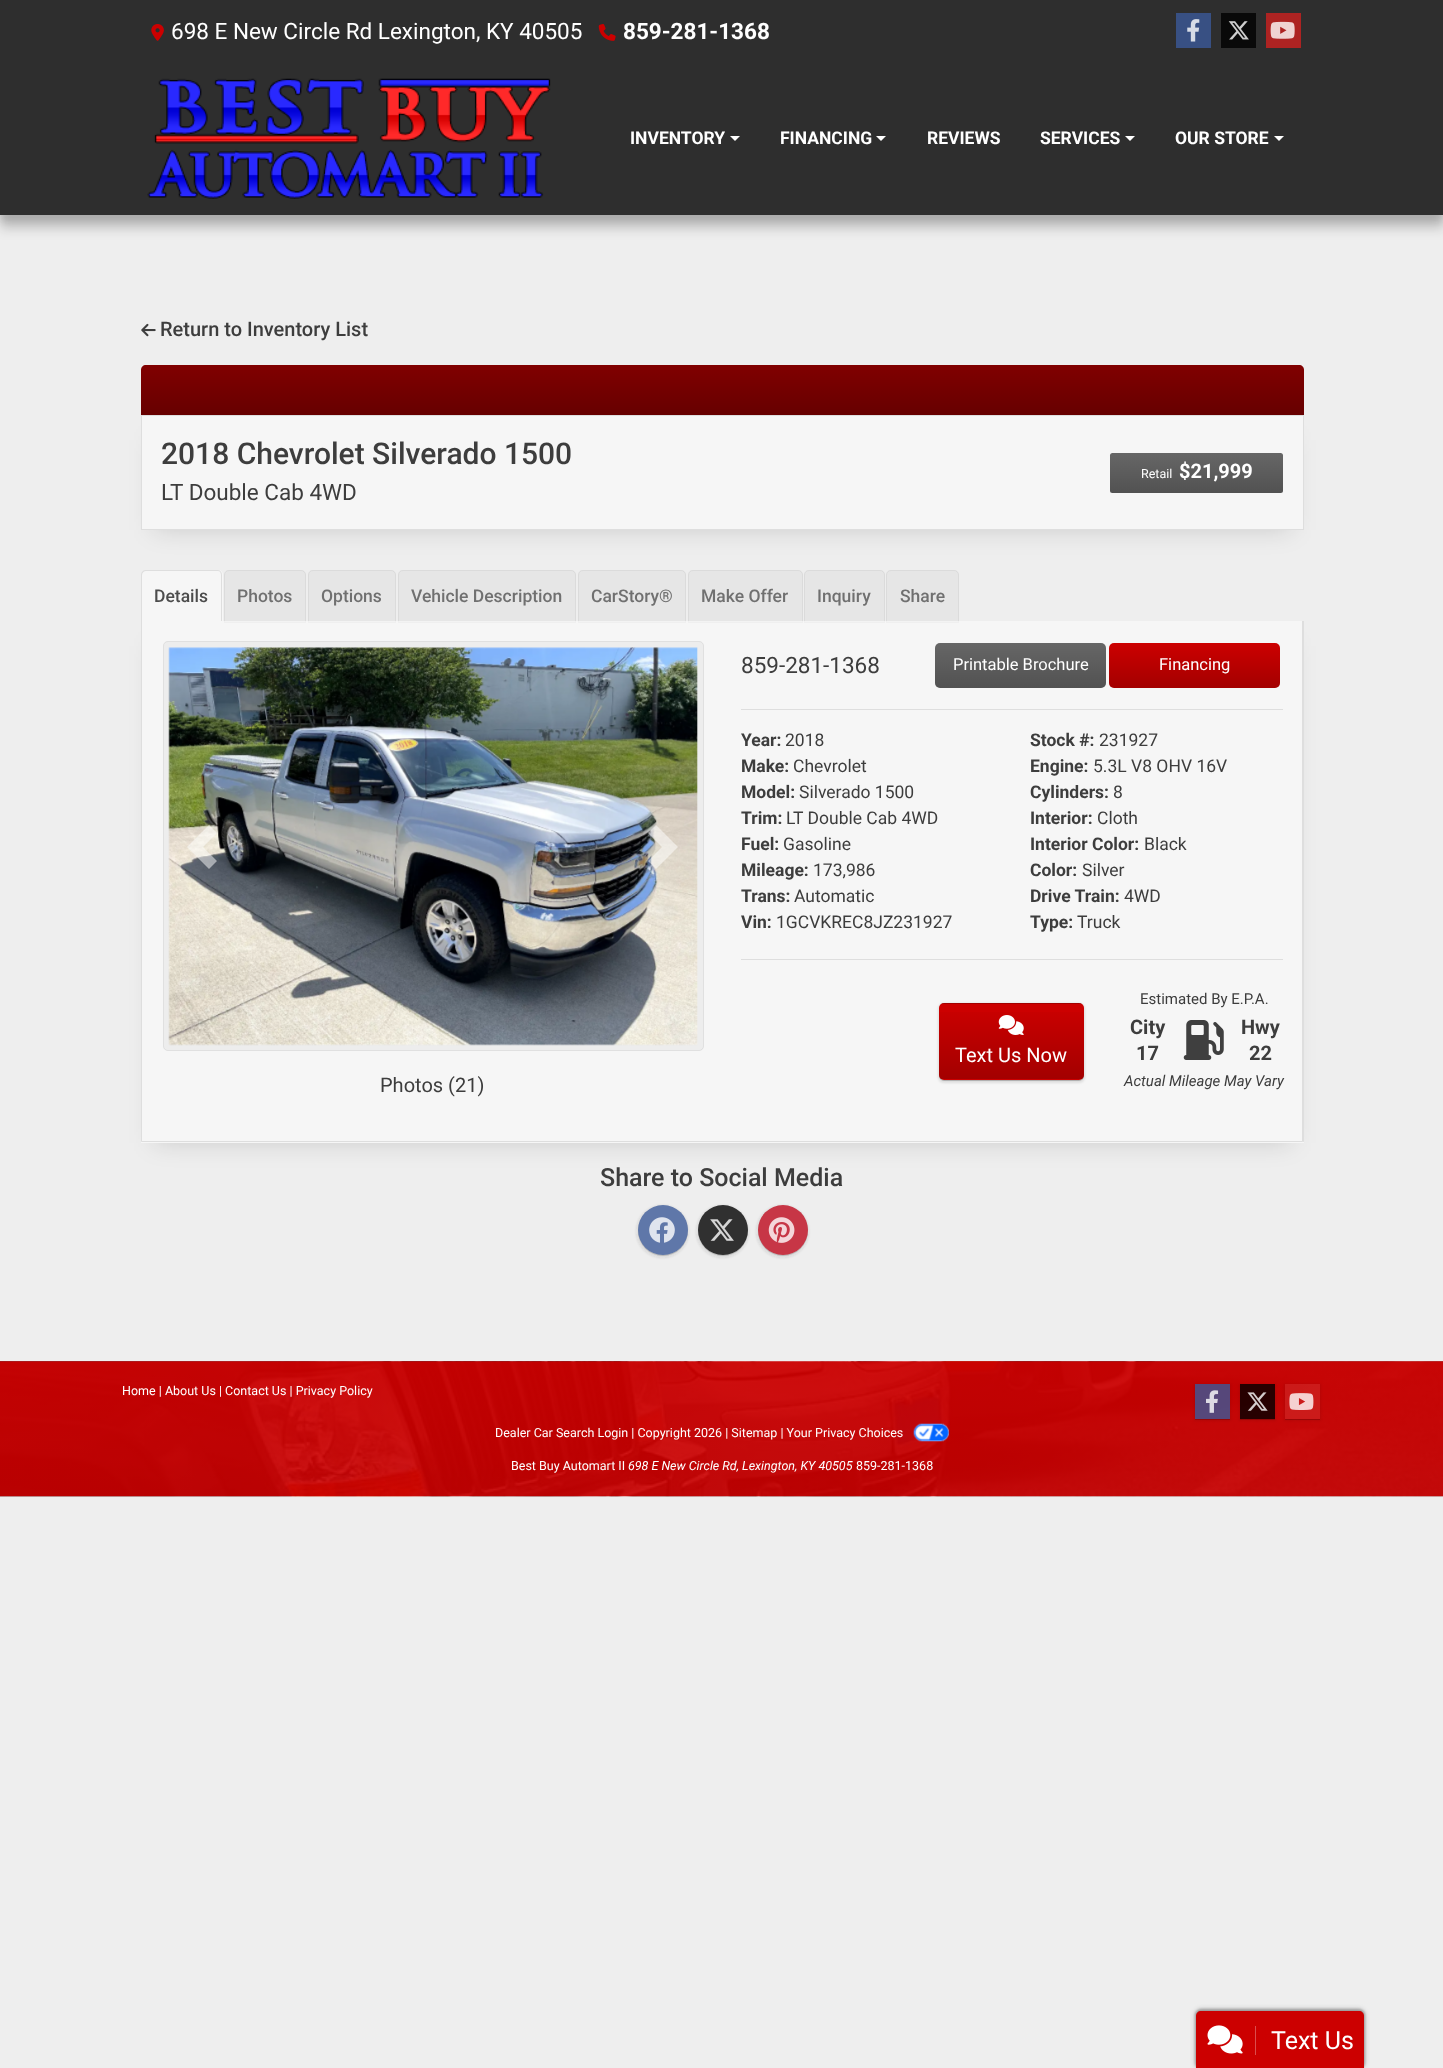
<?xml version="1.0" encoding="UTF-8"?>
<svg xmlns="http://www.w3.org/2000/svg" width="1443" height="2068">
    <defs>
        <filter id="blur1" x="-50%" y="-200%" width="200%" height="500%"><feGaussianBlur stdDeviation="3"/></filter>
        <filter id="blur2" x="-50%" y="-200%" width="200%" height="500%"><feGaussianBlur stdDeviation="6"/></filter>
        <filter id="blur3" x="-50%" y="-200%" width="200%" height="500%"><feGaussianBlur stdDeviation="12.5"/></filter>
        <linearGradient id="g1" gradientUnits="userSpaceOnUse" x1="723" y1="365" x2="723" y2="415"><stop offset="0" stop-color="#000000" stop-opacity="0"/><stop offset="1" stop-color="#000000" stop-opacity="0.2"/></linearGradient>
        <linearGradient id="g2" gradientUnits="userSpaceOnUse" x1="1196" y1="453" x2="1196" y2="493"><stop offset="0" stop-color="#000000" stop-opacity="0"/><stop offset="1" stop-color="#000000" stop-opacity="0.2"/></linearGradient>
        <clipPath id="clip1"><path d="M 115 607 H 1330 V 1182 H 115 Z M 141 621 H 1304 V 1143 H 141 Z" clip-rule="evenodd"/></clipPath>
        <linearGradient id="g3" gradientUnits="userSpaceOnUse" x1="1021" y1="643" x2="1021" y2="688"><stop offset="0" stop-color="#000000" stop-opacity="0"/><stop offset="1" stop-color="#000000" stop-opacity="0.2"/></linearGradient>
        <linearGradient id="g4" gradientUnits="userSpaceOnUse" x1="1194" y1="643" x2="1194" y2="688"><stop offset="0" stop-color="#000000" stop-opacity="0"/><stop offset="1" stop-color="#000000" stop-opacity="0.2"/></linearGradient>
        <filter id="blur4" x="-50%" y="-200%" width="200%" height="500%"><feGaussianBlur stdDeviation="0.5"/></filter>
        <filter id="blur5" x="-50%" y="-200%" width="200%" height="500%"><feGaussianBlur stdDeviation="1"/></filter>
        <clipPath id="clip2"><rect x="939" y="1003" width="145" height="77" rx="5"/></clipPath>
        <linearGradient id="g5" gradientUnits="userSpaceOnUse" x1="1011" y1="929" x2="1011" y2="1004"><stop offset="0" stop-color="#000000" stop-opacity="0"/><stop offset="1" stop-color="#000000" stop-opacity="0.2"/></linearGradient>
        <linearGradient id="g6" gradientUnits="userSpaceOnUse" x1="1011" y1="1004" x2="1011" y2="1079"><stop offset="0" stop-color="#000000" stop-opacity="0"/><stop offset="1" stop-color="#000000" stop-opacity="0.2"/></linearGradient>
        <clipPath id="clip3"><path d="M 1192 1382 H 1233 V 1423 H 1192 Z M 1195 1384 H 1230 V 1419 H 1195 Z" clip-rule="evenodd"/></clipPath>
        <clipPath id="clip4"><path d="M 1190 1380 H 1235 V 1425 H 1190 Z M 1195 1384 H 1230 V 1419 H 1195 Z" clip-rule="evenodd"/></clipPath>
        <clipPath id="clip5"><path d="M 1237 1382 H 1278 V 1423 H 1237 Z M 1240 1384 H 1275 V 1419 H 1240 Z" clip-rule="evenodd"/></clipPath>
        <clipPath id="clip6"><path d="M 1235 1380 H 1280 V 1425 H 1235 Z M 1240 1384 H 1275 V 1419 H 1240 Z" clip-rule="evenodd"/></clipPath>
        <clipPath id="clip7"><path d="M 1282 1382 H 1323 V 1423 H 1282 Z M 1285 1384 H 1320 V 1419 H 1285 Z" clip-rule="evenodd"/></clipPath>
        <clipPath id="clip8"><path d="M 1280 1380 H 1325 V 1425 H 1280 Z M 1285 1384 H 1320 V 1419 H 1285 Z" clip-rule="evenodd"/></clipPath>
        <filter id="blur6" x="-50%" y="-200%" width="200%" height="500%"><feGaussianBlur stdDeviation="2"/></filter>
    </defs>
    <rect width="100%" height="100%" fill="#EEEEEE"/>
    <rect x="0" y="6" width="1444" height="215" fill="#000000" fill-opacity="0.1" filter="url(#blur1)"/>
    <rect x="0" y="13" width="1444" height="215" fill="#000000" fill-opacity="0.2" filter="url(#blur2)"/>
    <rect x="0" y="0" width="1443" height="215" fill="#2E2E2E"/>
    <image x="151" y="24" width="13" height="17" href="img_01.png"/>
    <text x="171" y="39" font-family="Roboto" font-size="22.5" fill="#FFFFFF">698 E New Circle Rd Lexington, KY 40505</text>
    <image x="598" y="24" width="18" height="17" href="img_02.png"/>
    <text x="623" y="39" font-family="Roboto" font-size="22.5" font-weight="700" fill="#FFFFFF">859-281-1368</text>
    <rect x="1176" y="13" width="35" height="35" fill="#385083"/>
    <image x="1187" y="19" width="13" height="23" href="img_03.png"/>
    <rect x="1221" y="13" width="35" height="35" fill="#090909"/>
    <image x="1228" y="21" width="21" height="19" href="img_04.png"/>
    <rect x="1266" y="13" width="35" height="35" fill="#AD2322"/>
    <image x="1270" y="21" width="25" height="18" href="img_05.png"/>
    <image x="147" y="78" width="404" height="121" href="img_06.png"/>
    <text x="630" y="144" font-family="Roboto" font-size="17.5" font-weight="700" fill="#FFFFFF">INVENTORY</text>
    <path d="M 730 136 H 740 L 735 141 Z" fill="#FFFFFF"/>
    <text x="780" y="144" font-family="Roboto" font-size="17.5" font-weight="700" fill="#FFFFFF">FINANCING</text>
    <path d="M 876 136 H 886 L 881 141 Z" fill="#FFFFFF"/>
    <text x="927" y="144" font-family="Roboto" font-size="17.5" font-weight="700" fill="#FFFFFF">REVIEWS</text>
    <text x="1040" y="144" font-family="Roboto" font-size="17.5" font-weight="700" fill="#FFFFFF">SERVICES</text>
    <path d="M 1125 136 H 1135 L 1130 141 Z" fill="#FFFFFF"/>
    <text x="1175" y="144" font-family="Roboto" font-size="17.5" font-weight="700" fill="#FFFFFF">OUR STORE</text>
    <path d="M 1274 136 H 1284 L 1279 141 Z" fill="#FFFFFF"/>
    <image x="141" y="323" width="15" height="14" href="img_07.png"/>
    <text x="160" y="336" font-family="Roboto" font-size="20" font-weight="500" fill="#3D3D3D">Return to Inventory List</text>
    <rect x="154" y="440" width="1137" height="90" fill="#000000" fill-opacity="0.15" filter="url(#blur3)"/>
    <path d="M 146 365 H 1299 C 1302 365 1304 367 1304 370 V 415 H 141 V 370 C 141 367 143 365 146 365 Z" fill="#800000"/>
    <rect x="141" y="370" width="1163" height="45" fill="url(#g1)"/>
    <rect x="141.5" y="415.5" width="1162" height="114" fill="#F6F6F6" stroke="#DEDEDE"/>
    <text x="161" y="464" font-family="Roboto" font-size="30" font-weight="500" fill="#3D3D3D">2018 Chevrolet Silverado 1500</text>
    <text x="161" y="500" font-family="Roboto" font-size="22.5" fill="#3D3D3D">LT Double Cab 4WD</text>
    <rect x="1110" y="453" width="173" height="40" rx="2.5" fill="#666666"/>
    <rect x="1110" y="453" width="173" height="40" rx="2.5" fill="url(#g2)"/>
    <text x="1141" y="478" font-family="Roboto" font-size="12.5" fill="#FFFFFF">Retail</text>
    <text x="1179" y="478" font-family="Roboto" font-size="20" font-weight="700" fill="#FFFFFF">$21,999</text>
    <path d="M 146 570 H 218 C 221 570 223 572 223 575 V 621 H 141 V 575 C 141 572 143 570 146 570 Z" fill="#F6F6F6"/>
    <path d="M 146 570 H 218 C 220 570 222 572 222 575 V 621 H 141 V 575 C 141 572 143 570 146 570 Z M 146 571 H 218 C 220 571 221 573 221 575 V 621 H 142 V 575 C 142 573 144 571 146 571 Z" fill="#D8D8D8" fill-opacity="0.8" fill-rule="evenodd"/>
    <text x="154" y="602" font-family="Roboto" font-size="17.5" font-weight="500" fill="#4C4C4C">Details</text>
    <path d="M 229 570 H 301 C 304 570 306 572 306 575 V 623 H 224 V 575 C 224 572 226 570 229 570 Z" fill="#E6E6E6"/>
    <path d="M 229 570.5 H 301 C 303.5 570.5 305.5 572.5 305.5 575 V 622.5 H 224.5 V 575 C 224.5 572.5 226.5 570.5 229 570.5 Z" fill="none" stroke="#D8D8D8" stroke-opacity="0.8"/>
    <text x="237" y="602" font-family="Roboto" font-size="17.5" font-weight="500" fill="#707070">Photos</text>
    <path d="M 313 570 H 391 C 394 570 396 572 396 575 V 623 H 308 V 575 C 308 572 310 570 313 570 Z" fill="#E6E6E6"/>
    <path d="M 313 570.5 H 391 C 393.5 570.5 395.5 572.5 395.5 575 V 622.5 H 308.5 V 575 C 308.5 572.5 310.5 570.5 313 570.5 Z" fill="none" stroke="#D8D8D8" stroke-opacity="0.8"/>
    <text x="321" y="602" font-family="Roboto" font-size="17.5" font-weight="500" fill="#707070">Options</text>
    <path d="M 403 570 H 571 C 574 570 576 572 576 575 V 623 H 398 V 575 C 398 572 400 570 403 570 Z" fill="#E6E6E6"/>
    <path d="M 403 570.5 H 571 C 573.5 570.5 575.5 572.5 575.5 575 V 622.5 H 398.5 V 575 C 398.5 572.5 400.5 570.5 403 570.5 Z" fill="none" stroke="#D8D8D8" stroke-opacity="0.8"/>
    <text x="411" y="602" font-family="Roboto" font-size="17.5" font-weight="500" fill="#707070">Vehicle Description</text>
    <path d="M 583 570 H 681 C 684 570 686 572 686 575 V 623 H 578 V 575 C 578 572 580 570 583 570 Z" fill="#E6E6E6"/>
    <path d="M 583 570.5 H 681 C 683.5 570.5 685.5 572.5 685.5 575 V 622.5 H 578.5 V 575 C 578.5 572.5 580.5 570.5 583 570.5 Z" fill="none" stroke="#D8D8D8" stroke-opacity="0.8"/>
    <text x="591" y="602" font-family="Roboto" font-size="17.5" font-weight="500" fill="#707070">CarStory®</text>
    <path d="M 693 570 H 798 C 801 570 803 572 803 575 V 623 H 688 V 575 C 688 572 690 570 693 570 Z" fill="#E6E6E6"/>
    <path d="M 693 570.5 H 798 C 800.5 570.5 802.5 572.5 802.5 575 V 622.5 H 688.5 V 575 C 688.5 572.5 690.5 570.5 693 570.5 Z" fill="none" stroke="#D8D8D8" stroke-opacity="0.8"/>
    <text x="701" y="602" font-family="Roboto" font-size="17.5" font-weight="500" fill="#707070">Make Offer</text>
    <path d="M 809 570 H 880 C 883 570 885 572 885 575 V 623 H 804 V 575 C 804 572 806 570 809 570 Z" fill="#E6E6E6"/>
    <path d="M 809 570.5 H 880 C 882.5 570.5 884.5 572.5 884.5 575 V 622.5 H 804.5 V 575 C 804.5 572.5 806.5 570.5 809 570.5 Z" fill="none" stroke="#D8D8D8" stroke-opacity="0.8"/>
    <text x="817" y="602" font-family="Roboto" font-size="17.5" font-weight="500" fill="#707070">Inquiry</text>
    <path d="M 891 570 H 954 C 957 570 959 572 959 575 V 623 H 886 V 575 C 886 572 888 570 891 570 Z" fill="#E6E6E6"/>
    <path d="M 891 570.5 H 954 C 956.5 570.5 958.5 572.5 958.5 575 V 622.5 H 886.5 V 575 C 886.5 572.5 888.5 570.5 891 570.5 Z" fill="none" stroke="#D8D8D8" stroke-opacity="0.8"/>
    <text x="900" y="602" font-family="Roboto" font-size="17.5" font-weight="500" fill="#707070">Share</text>
    <g clip-path="url(#clip1)">
        <rect x="154" y="646" width="1137" height="497" fill="#000000" fill-opacity="0.15" filter="url(#blur3)"/>
    </g>
    <rect x="141" y="621" width="1163" height="522" fill="#FBFBFB" fill-opacity="0.6"/>
    <path d="M 1304 621 V 1142 L 1302 1141 V 621 Z" fill="#DEDEDE"/>
    <path d="M 1304 1142 H 141 L 142 1141 H 1302 Z" fill="#D8D8D8" fill-opacity="0.8"/>
    <path d="M 141 1142 V 621 H 142 V 1141 Z" fill="#D8D8D8" fill-opacity="0.8"/>
    <rect x="163" y="641" width="541" height="410" rx="5" fill="#EDEDED"/>
    <rect x="163.5" y="641.5" width="540" height="409" rx="4.5" fill="none" stroke="#DCDCDC" stroke-opacity="0.8"/>
    <image x="168" y="647" width="530" height="399" href="img_08.png"/>
    <path d="M 209 825 L 187 847 L 209 869 L 217 861 L 203 847 L 217 833 Z" fill="#FFFFFF" fill-opacity="0.5"/>
    <path d="M 656 825 L 648 833 L 662 847 L 648 861 L 656 869 L 678 847 Z" fill="#FFFFFF" fill-opacity="0.5"/>
    <text x="380" y="1092" font-family="Roboto" font-size="20" fill="#3D3D3D">Photos (21)</text>
    <text x="741" y="673" font-family="Roboto" font-size="22.5" fill="#3D3D3D">859-281-1368</text>
    <rect x="935" y="643" width="171" height="45" rx="5" fill="#666666"/>
    <rect x="935" y="643" width="171" height="45" rx="5" fill="url(#g3)"/>
    <text x="953" y="670" font-family="Roboto" font-size="16.5" fill="#FFFFFF">Printable Brochure</text>
    <rect x="1109" y="643" width="171" height="45" rx="5" fill="#CC0000"/>
    <rect x="1109" y="643" width="171" height="45" rx="5" fill="url(#g4)"/>
    <text x="1159" y="670" font-family="Roboto" font-size="16.5" fill="#FFFFFF">Financing</text>
    <rect x="741" y="709" width="542" height="1" fill="#DEDEDE"/>
    <text x="741" y="746" font-family="Roboto" font-size="17.5" font-weight="700" fill="#3D3D3D">Year:</text>
    <text x="785" y="746" font-family="Roboto" font-size="17.5" fill="#3D3D3D">2018</text>
    <text x="741" y="772" font-family="Roboto" font-size="17.5" font-weight="700" fill="#3D3D3D">Make:</text>
    <text x="793" y="772" font-family="Roboto" font-size="17.5" fill="#3D3D3D">Chevrolet</text>
    <text x="741" y="798" font-family="Roboto" font-size="17.5" font-weight="700" fill="#3D3D3D">Model:</text>
    <text x="799" y="798" font-family="Roboto" font-size="17.5" fill="#3D3D3D">Silverado 1500</text>
    <text x="741" y="824" font-family="Roboto" font-size="17.5" font-weight="700" fill="#3D3D3D">Trim:</text>
    <text x="786" y="824" font-family="Roboto" font-size="17.5" fill="#3D3D3D">LT Double Cab 4WD</text>
    <text x="741" y="850" font-family="Roboto" font-size="17.5" font-weight="700" fill="#3D3D3D">Fuel:</text>
    <text x="783" y="850" font-family="Roboto" font-size="17.5" fill="#3D3D3D">Gasoline</text>
    <text x="741" y="876" font-family="Roboto" font-size="17.5" font-weight="700" fill="#3D3D3D">Mileage:</text>
    <text x="813" y="876" font-family="Roboto" font-size="17.5" fill="#3D3D3D">173,986</text>
    <text x="741" y="902" font-family="Roboto" font-size="17.5" font-weight="700" fill="#3D3D3D">Trans:</text>
    <text x="794" y="902" font-family="Roboto" font-size="17.5" fill="#3D3D3D">Automatic</text>
    <text x="741" y="928" font-family="Roboto" font-size="17.5" font-weight="700" fill="#3D3D3D">Vin:</text>
    <text x="776" y="928" font-family="Roboto" font-size="17.5" fill="#3D3D3D">1GCVKREC8JZ231927</text>
    <text x="1030" y="746" font-family="Roboto" font-size="17.5" font-weight="700" fill="#3D3D3D">Stock #:</text>
    <text x="1099" y="746" font-family="Roboto" font-size="17.5" fill="#3D3D3D">231927</text>
    <text x="1030" y="772" font-family="Roboto" font-size="17.5" font-weight="700" fill="#3D3D3D">Engine:</text>
    <text x="1093" y="772" font-family="Roboto" font-size="17.5" fill="#3D3D3D">5.3L V8 OHV 16V</text>
    <text x="1030" y="798" font-family="Roboto" font-size="17.5" font-weight="700" fill="#3D3D3D">Cylinders:</text>
    <text x="1113" y="798" font-family="Roboto" font-size="17.5" fill="#3D3D3D">8</text>
    <text x="1030" y="824" font-family="Roboto" font-size="17.5" font-weight="700" fill="#3D3D3D">Interior:</text>
    <text x="1097" y="824" font-family="Roboto" font-size="17.5" fill="#3D3D3D">Cloth</text>
    <text x="1030" y="850" font-family="Roboto" font-size="17.5" font-weight="700" fill="#3D3D3D">Interior Color:</text>
    <text x="1144" y="850" font-family="Roboto" font-size="17.5" fill="#3D3D3D">Black</text>
    <text x="1030" y="876" font-family="Roboto" font-size="17.5" font-weight="700" fill="#3D3D3D">Color:</text>
    <text x="1082" y="876" font-family="Roboto" font-size="17.5" fill="#3D3D3D">Silver</text>
    <text x="1030" y="902" font-family="Roboto" font-size="17.5" font-weight="700" fill="#3D3D3D">Drive Train:</text>
    <text x="1124" y="902" font-family="Roboto" font-size="17.5" fill="#3D3D3D">4WD</text>
    <text x="1030" y="928" font-family="Roboto" font-size="17.5" font-weight="700" fill="#3D3D3D">Type:</text>
    <text x="1077" y="928" font-family="Roboto" font-size="17.5" fill="#3D3D3D">Truck</text>
    <rect x="741" y="959" width="542" height="1" fill="#DEDEDE"/>
    <rect x="939" y="1004" width="145" height="77" rx="5" fill="#000000" fill-opacity="0.2" filter="url(#blur4)"/>
    <rect x="938" y="1003" width="147" height="80" rx="6" fill="#000000" fill-opacity="0.1" filter="url(#blur5)"/>
    <rect x="939" y="1003" width="145" height="77" rx="5" fill="#CC0000"/>
    <g clip-path="url(#clip2)">
        <rect x="939" y="1003" width="145" height="1" fill="url(#g5)"/>
        <rect x="939" y="1012" width="145" height="67" fill="url(#g6)"/>
    </g>
    <image x="998" y="1015" width="26" height="20" href="img_09.png"/>
    <text x="955" y="1062" font-family="Roboto" font-size="20" fill="#FFFFFF">Text Us Now</text>
    <text x="1140" y="1004" font-family="Roboto" font-size="15" fill="#3D3D3D">Estimated By E.P.A.</text>
    <text x="1130" y="1034" font-family="Roboto" font-size="20" font-weight="700" fill="#3D3D3D">City</text>
    <text x="1136" y="1060" font-family="Roboto" font-size="20" font-weight="700" fill="#3D3D3D">17</text>
    <image x="1183" y="1020" width="41" height="40" href="img_10.png"/>
    <text x="1241" y="1034" font-family="Roboto" font-size="20" font-weight="700" fill="#3D3D3D">Hwy</text>
    <text x="1249" y="1060" font-family="Roboto" font-size="20" font-weight="700" fill="#3D3D3D">22</text>
    <text x="1124" y="1086" font-family="Roboto" font-size="15" font-style="italic" fill="#3D3D3D">Actual Mileage May Vary</text>
    <text x="600" y="1186" font-family="Roboto" font-size="25" font-weight="500" fill="#3D3D3D">Share to Social Media</text>
    <rect x="638" y="1206" width="50" height="50" rx="25" fill="#303030" fill-opacity="0.2" filter="url(#blur4)"/>
    <rect x="636" y="1205" width="53" height="53" rx="26.5" fill="#303030" fill-opacity="0.1" filter="url(#blur5)"/>
    <circle cx="663" cy="1230" r="25" fill="#5F77A9"/>
    <image x="649" y="1217" width="26" height="26" href="img_11.png"/>
    <rect x="698" y="1206" width="50" height="50" rx="25" fill="#303030" fill-opacity="0.2" filter="url(#blur4)"/>
    <rect x="696" y="1205" width="53" height="53" rx="26.5" fill="#303030" fill-opacity="0.1" filter="url(#blur5)"/>
    <circle cx="723" cy="1230" r="25" fill="#303030"/>
    <image x="710" y="1219" width="24" height="22" href="img_12.png"/>
    <rect x="758" y="1206" width="50" height="50" rx="25" fill="#303030" fill-opacity="0.2" filter="url(#blur4)"/>
    <rect x="756" y="1205" width="53" height="53" rx="26.5" fill="#303030" fill-opacity="0.1" filter="url(#blur5)"/>
    <circle cx="783" cy="1230" r="25" fill="#C73646"/>
    <image x="768" y="1217" width="27" height="26" href="img_13.png"/>
    <image x="0" y="1361" width="1443" height="136" href="img_14.png"/>
    <text x="122" y="1395" font-family="Roboto" font-size="12.5" fill="#FFFFFF">Home | About Us | Contact Us | Privacy Policy</text>
    <g clip-path="url(#clip3)">
        <rect x="1195" y="1385" width="35" height="35" fill="#000000" fill-opacity="0.16" filter="url(#blur4)"/>
    </g>
    <g clip-path="url(#clip4)">
        <rect x="1194" y="1384" width="37" height="37" fill="#000000" fill-opacity="0.08" filter="url(#blur5)"/>
    </g>
    <rect x="1195" y="1384" width="35" height="35" fill="#3B5998" fill-opacity="0.8"/>
    <image x="1206" y="1390" width="13" height="23" href="img_15.png"/>
    <g clip-path="url(#clip5)">
        <rect x="1240" y="1385" width="35" height="35" fill="#000000" fill-opacity="0.16" filter="url(#blur4)"/>
    </g>
    <g clip-path="url(#clip6)">
        <rect x="1239" y="1384" width="37" height="37" fill="#000000" fill-opacity="0.08" filter="url(#blur5)"/>
    </g>
    <rect x="1240" y="1384" width="35" height="35" fill="#000000" fill-opacity="0.8"/>
    <image x="1247" y="1392" width="21" height="19" href="img_16.png"/>
    <g clip-path="url(#clip7)">
        <rect x="1285" y="1385" width="35" height="35" fill="#000000" fill-opacity="0.16" filter="url(#blur4)"/>
    </g>
    <g clip-path="url(#clip8)">
        <rect x="1284" y="1384" width="37" height="37" fill="#000000" fill-opacity="0.08" filter="url(#blur5)"/>
    </g>
    <rect x="1285" y="1384" width="35" height="35" fill="#CD201F" fill-opacity="0.8"/>
    <image x="1289" y="1393" width="25" height="17" href="img_17.png"/>
    <text x="495" y="1437" font-family="Roboto" font-size="12.5" fill="#FFFFFF">Dealer Car Search Login | Copyright 2026 | Sitemap | Your Privacy Choices</text>
    <image x="913" y="1423" width="36" height="19" href="img_18.png"/>
    <text x="511" y="1470" font-family="Roboto" font-size="12.5" fill="#FFFFFF">Best Buy Automart II</text>
    <text x="628" y="1470" font-family="Roboto" font-size="12.5" font-style="italic" fill="#FFFFFF">698 E New Circle Rd, Lexington, KY 40505</text>
    <text x="856" y="1470" font-family="Roboto" font-size="12.5" fill="#FFFFFF">859-281-1368</text>
    <rect x="1195" y="2009" width="170" height="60" rx="6" fill="#000000" fill-opacity="0.25" filter="url(#blur5)"/>
    <rect x="1194" y="2008" width="172" height="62" rx="8" fill="#000000" fill-opacity="0.15" filter="url(#blur6)"/>
    <path d="M 1201 2011 H 1359 C 1362 2011 1364 2013 1364 2016 V 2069 H 1196 V 2016 C 1196 2013 1198 2011 1201 2011 Z" fill="#CC0000"/>
    <rect x="1255" y="2026" width="1" height="29" fill="#DB4D4D"/>
    <image x="1207" y="2025" width="36" height="29" href="img_19.png"/>
    <text x="1271" y="2049" font-family="Roboto" font-size="25" fill="#FFFFFF">Text Us</text>
</svg>
